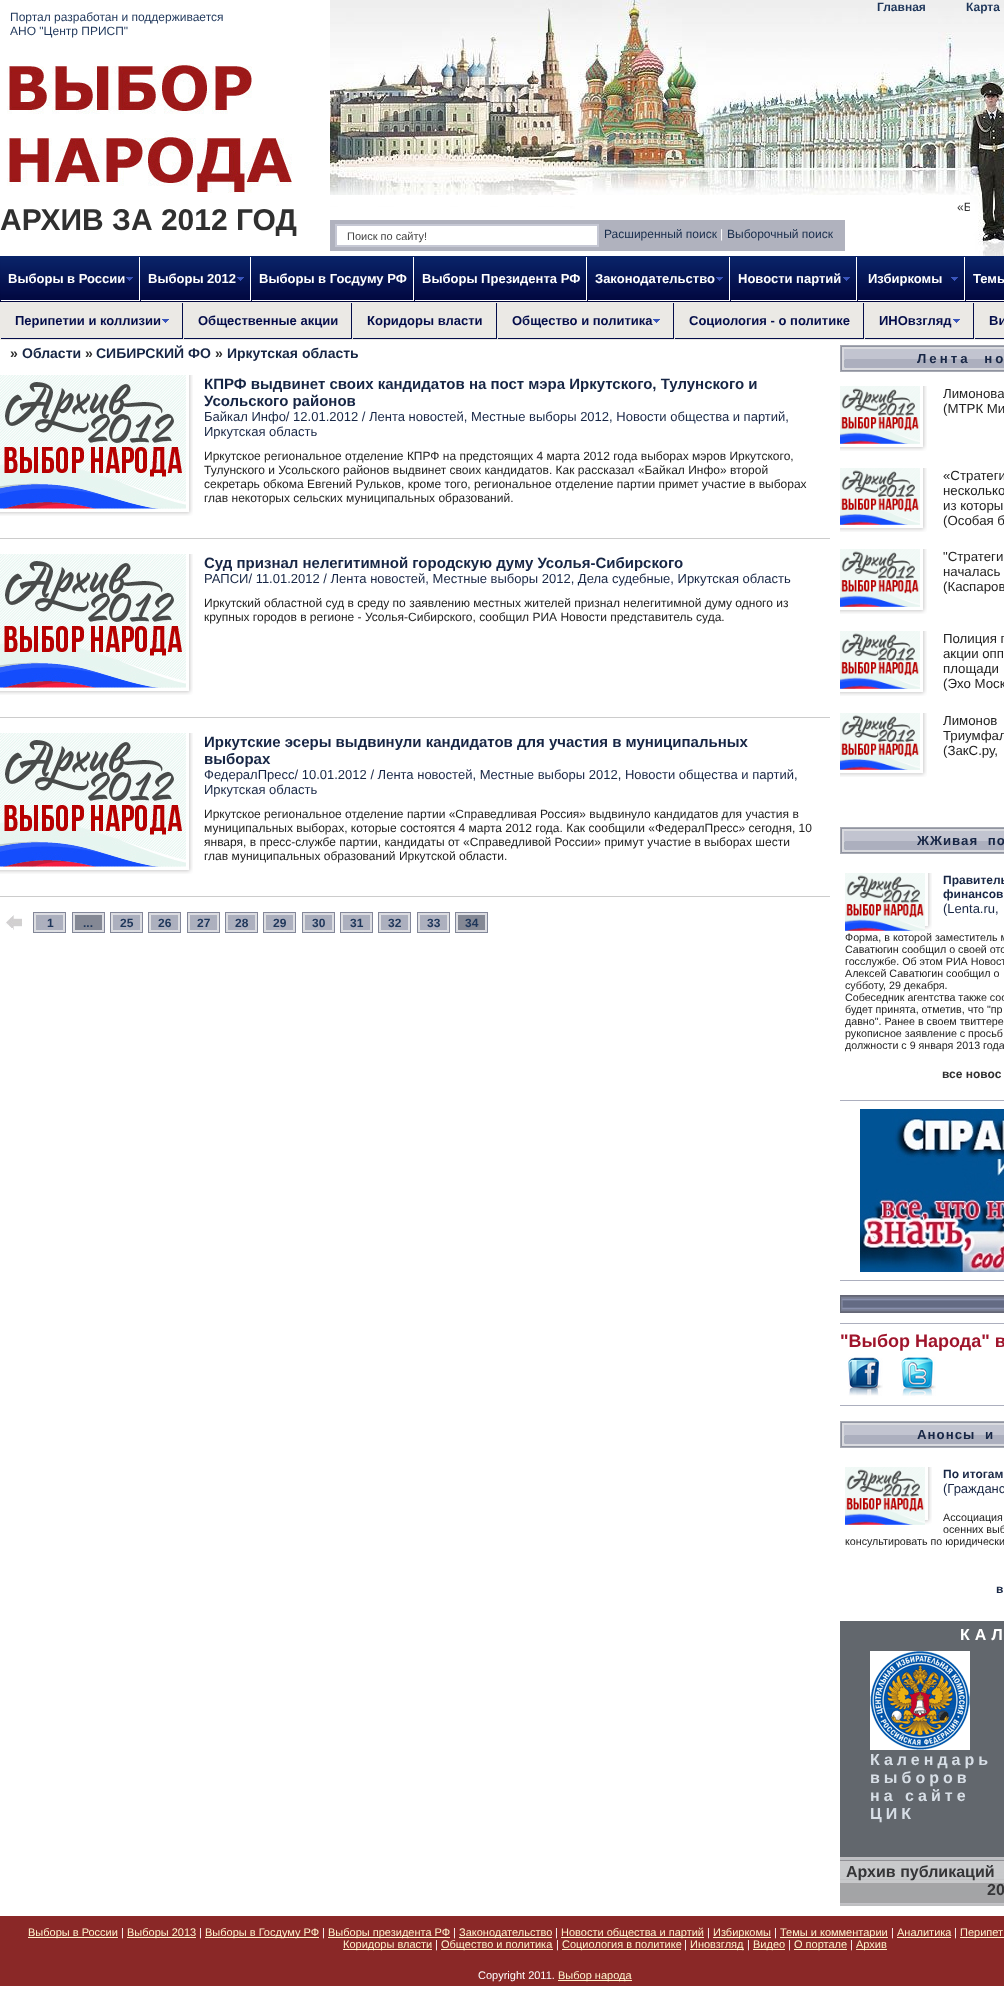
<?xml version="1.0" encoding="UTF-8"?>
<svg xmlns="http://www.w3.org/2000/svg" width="1004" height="1998">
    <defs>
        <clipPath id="clip1"><rect x="330" y="200" width="640" height="14"/></clipPath>
    </defs>
    <rect width="100%" height="100%" fill="#FFFFFF"/>
    <image x="330" y="0" width="674" height="82" href="img_01.png"/>
    <text x="877" y="11" font-family="Liberation Sans" font-size="12" font-weight="700" fill="#1E365A">Главная</text>
    <text x="966" y="11" font-family="Liberation Sans" font-size="12" font-weight="700" fill="#1E365A">Карта</text>
    <image x="330" y="82" width="674" height="82" href="img_02.png"/>
    <image x="330" y="164" width="674" height="92" href="img_03.png"/>
    <text font-family="Liberation Sans" font-size="12" fill="#1E365A">
        <tspan x="10" y="21">Портал разработан и поддерживается</tspan>
        <tspan x="10" y="35">АНО "Центр ПРИСП"</tspan>
    </text>
    <image x="7" y="64" width="285" height="129" href="img_04.png"/>
    <text x="0" y="230" font-family="Liberation Sans" font-size="30" font-weight="700" fill="#303030">АРХИВ ЗА 2012 ГОД</text>
    <rect x="330" y="195" width="640" height="11" fill="#FFFFFF"/>
    <g clip-path="url(#clip1)">
        <text x="957" y="211" font-family="Liberation Sans" font-size="12" fill="#303030">«Б</text>
    </g>
    <rect x="330" y="220" width="515" height="31" fill="#B0B2BE"/>
    <rect x="336" y="225" width="262" height="21" fill="#FFFFFF" stroke="#C6C8D4" stroke-width="2"/>
    <text x="347" y="240" font-family="Liberation Sans" font-size="11" fill="#444444">Поиск по сайту!</text>
    <text x="604" y="238" font-family="Liberation Sans" font-size="12" fill="#182D4C">Расширенный поиск</text>
    <text x="720" y="238" font-family="Liberation Sans" font-size="12" fill="#FFFFFF">|</text>
    <text x="727" y="238" font-family="Liberation Sans" font-size="12" fill="#182D4C">Выборочный поиск</text>
    <image x="0" y="256" width="1004" height="46" href="img_05.png"/>
    <image x="1" y="257" width="138" height="43" href="img_06.png"/>
    <rect x="139" y="257" width="1" height="44" fill="#FFFFFF"/>
    <rect x="1" y="300" width="139" height="1" fill="#FFFFFF"/>
    <image x="126" y="277" width="7" height="4" href="img_07.png"/>
    <text x="8" y="283" font-family="Liberation Sans" font-size="13" font-weight="700" fill="#FFFFFF">Выборы в России</text>
    <image x="141" y="257" width="109" height="43" href="img_08.png"/>
    <rect x="250" y="257" width="1" height="44" fill="#FFFFFF"/>
    <rect x="141" y="300" width="110" height="1" fill="#FFFFFF"/>
    <image x="237" y="277" width="7" height="4" href="img_07.png"/>
    <text x="148" y="283" font-family="Liberation Sans" font-size="13" font-weight="700" fill="#FFFFFF">Выборы 2012</text>
    <image x="252" y="257" width="161" height="43" href="img_09.png"/>
    <rect x="413" y="257" width="1" height="44" fill="#FFFFFF"/>
    <rect x="252" y="300" width="162" height="1" fill="#FFFFFF"/>
    <text x="259" y="283" font-family="Liberation Sans" font-size="13" font-weight="700" fill="#FFFFFF">Выборы в Госдуму РФ</text>
    <image x="415" y="257" width="171" height="43" href="img_10.png"/>
    <rect x="586" y="257" width="1" height="44" fill="#FFFFFF"/>
    <rect x="415" y="300" width="172" height="1" fill="#FFFFFF"/>
    <text x="422" y="283" font-family="Liberation Sans" font-size="13" font-weight="700" fill="#FFFFFF">Выборы Президента РФ</text>
    <image x="588" y="257" width="141" height="43" href="img_11.png"/>
    <rect x="729" y="257" width="1" height="44" fill="#FFFFFF"/>
    <rect x="588" y="300" width="142" height="1" fill="#FFFFFF"/>
    <image x="716" y="277" width="7" height="4" href="img_07.png"/>
    <text x="595" y="283" font-family="Liberation Sans" font-size="13" font-weight="700" fill="#FFFFFF">Законодательство</text>
    <image x="731" y="257" width="125" height="43" href="img_12.png"/>
    <rect x="856" y="257" width="1" height="44" fill="#FFFFFF"/>
    <rect x="731" y="300" width="126" height="1" fill="#FFFFFF"/>
    <image x="843" y="277" width="7" height="4" href="img_07.png"/>
    <text x="738" y="283" font-family="Liberation Sans" font-size="13" font-weight="700" fill="#FFFFFF">Новости партий</text>
    <image x="858" y="257" width="106" height="43" href="img_13.png"/>
    <rect x="964" y="257" width="1" height="44" fill="#FFFFFF"/>
    <rect x="858" y="300" width="107" height="1" fill="#FFFFFF"/>
    <image x="951" y="277" width="7" height="4" href="img_07.png"/>
    <text x="868" y="283" font-family="Liberation Sans" font-size="13" font-weight="700" fill="#FFFFFF">Избиркомы</text>
    <image x="966" y="257" width="38" height="43" href="img_14.png"/>
    <rect x="966" y="300" width="38" height="1" fill="#FFFFFF"/>
    <text x="973" y="283" font-family="Liberation Sans" font-size="13" font-weight="700" fill="#FFFFFF">Темы</text>
    <rect x="0" y="302" width="1004" height="38" fill="#EBE9E5"/>
    <rect x="182" y="303" width="1" height="36" fill="#040D4A"/>
    <rect x="1" y="338" width="182" height="1" fill="#040D4A"/>
    <image x="162" y="319" width="7" height="4" href="img_15.png"/>
    <text x="15" y="325" font-family="Liberation Sans" font-size="13" font-weight="700" fill="#040D4A">Перипетии и коллизии</text>
    <rect x="351" y="303" width="1" height="36" fill="#040D4A"/>
    <rect x="184" y="338" width="168" height="1" fill="#040D4A"/>
    <text x="198" y="325" font-family="Liberation Sans" font-size="13" font-weight="700" fill="#040D4A">Общественные акции</text>
    <rect x="496" y="303" width="1" height="36" fill="#040D4A"/>
    <rect x="353" y="338" width="144" height="1" fill="#040D4A"/>
    <text x="367" y="325" font-family="Liberation Sans" font-size="13" font-weight="700" fill="#040D4A">Коридоры власти</text>
    <rect x="673" y="303" width="1" height="36" fill="#040D4A"/>
    <rect x="498" y="338" width="176" height="1" fill="#040D4A"/>
    <image x="653" y="319" width="7" height="4" href="img_15.png"/>
    <text x="512" y="325" font-family="Liberation Sans" font-size="13" font-weight="700" fill="#040D4A">Общество и политика</text>
    <rect x="863" y="303" width="1" height="36" fill="#040D4A"/>
    <rect x="675" y="338" width="189" height="1" fill="#040D4A"/>
    <text x="689" y="325" font-family="Liberation Sans" font-size="13" font-weight="700" fill="#040D4A">Социология - о политике</text>
    <rect x="973" y="303" width="1" height="36" fill="#040D4A"/>
    <rect x="865" y="338" width="109" height="1" fill="#040D4A"/>
    <image x="953" y="319" width="7" height="4" href="img_15.png"/>
    <text x="879" y="325" font-family="Liberation Sans" font-size="13" font-weight="700" fill="#040D4A">ИНОвзгляд</text>
    <rect x="975" y="338" width="29" height="1" fill="#040D4A"/>
    <text x="989" y="325" font-family="Liberation Sans" font-size="13" font-weight="700" fill="#040D4A">Ви</text>
    <text x="10" y="358" font-family="Liberation Sans" font-size="14" font-weight="700" fill="#303030">»</text>
    <text x="22" y="358" font-family="Liberation Sans" font-size="14" font-weight="700" fill="#172645">Области</text>
    <text x="85" y="358" font-family="Liberation Sans" font-size="14" font-weight="700" fill="#303030">»</text>
    <text x="96" y="358" font-family="Liberation Sans" font-size="14" font-weight="700" fill="#172645">СИБИРСКИЙ ФО</text>
    <text x="215" y="358" font-family="Liberation Sans" font-size="14" font-weight="700" fill="#303030">»</text>
    <text x="227" y="358" font-family="Liberation Sans" font-size="14" font-weight="700" fill="#172645">Иркутская область</text>
    <image x="0" y="375" width="193" height="141" href="img_16.png"/>
    <text font-family="Liberation Sans" font-size="15" font-weight="700" fill="#172645">
        <tspan x="204" y="389">КПРФ выдвинет своих кандидатов на пост мэра Иркутского, Тулунского и</tspan>
        <tspan x="204" y="406">Усольского районов</tspan>
    </text>
    <text font-family="Liberation Sans" font-size="13" fill="#172645">
        <tspan x="204" y="421">Байкал Инфо/ 12.01.2012 / Лента новостей, Местные выборы 2012, Новости общества и партий,</tspan>
        <tspan x="204" y="436">Иркутская область</tspan>
    </text>
    <text font-family="Liberation Sans" font-size="12" fill="#222222">
        <tspan x="204" y="460">Иркутское региональное отделение КПРФ на предстоящих 4 марта 2012 года выборах мэров Иркутского,</tspan>
        <tspan x="204" y="474">Тулунского и Усольского районов выдвинет своих кандидатов. Как рассказал «Байкал Инфо» второй</tspan>
        <tspan x="204" y="488">секретарь обкома Евгений Рульков, кроме того, региональное отделение партии примет участие в выборах</tspan>
        <tspan x="204" y="502">глав некоторых сельских муниципальных образований.</tspan>
    </text>
    <rect x="0" y="538" width="830" height="1" fill="#CCCCCC"/>
    <image x="0" y="554" width="193" height="141" href="img_16.png"/>
    <text x="204" y="568" font-family="Liberation Sans" font-size="15" font-weight="700" fill="#172645">Суд признал нелегитимной городскую думу Усолья-Сибирского</text>
    <text x="204" y="583" font-family="Liberation Sans" font-size="13" fill="#172645">РАПСИ/ 11.01.2012 / Лента новостей, Местные выборы 2012, Дела судебные, Иркутская область</text>
    <text font-family="Liberation Sans" font-size="12" fill="#222222">
        <tspan x="204" y="607">Иркутский областной суд в среду по заявлению местных жителей признал нелегитимной думу одного из</tspan>
        <tspan x="204" y="621">крупных городов в регионе - Усолья-Сибирского, сообщил РИА Новости представитель суда.</tspan>
    </text>
    <rect x="0" y="717" width="830" height="1" fill="#CCCCCC"/>
    <image x="0" y="733" width="193" height="141" href="img_16.png"/>
    <text font-family="Liberation Sans" font-size="15" font-weight="700" fill="#172645">
        <tspan x="204" y="747">Иркутские эсеры выдвинули кандидатов для участия в муниципальных</tspan>
        <tspan x="204" y="764">выборах</tspan>
    </text>
    <text font-family="Liberation Sans" font-size="13" fill="#172645">
        <tspan x="204" y="779">ФедералПресс/ 10.01.2012 / Лента новостей, Местные выборы 2012, Новости общества и партий,</tspan>
        <tspan x="204" y="794">Иркутская область</tspan>
    </text>
    <text font-family="Liberation Sans" font-size="12" fill="#222222">
        <tspan x="204" y="818">Иркутское региональное отделение партии «Справедливая Россия» выдвинуло кандидатов для участия в</tspan>
        <tspan x="204" y="832">муниципальных выборах, которые состоятся 4 марта 2012 года. Как сообщили «ФедералПресс» сегодня, 10</tspan>
        <tspan x="204" y="846">января, в пресс-службе партии, кандидаты от «Справедливой России» примут участие в выборах шести</tspan>
        <tspan x="204" y="860">глав муниципальных образований Иркутской области.</tspan>
    </text>
    <rect x="0" y="896" width="830" height="1" fill="#CCCCCC"/>
    <image x="5" y="915" width="18" height="15" href="img_17.png"/>
    <image x="33" y="912" width="33" height="21" href="img_18.png"/>
    <text x="47" y="927" font-family="Liberation Sans" font-size="12" font-weight="700" fill="#1E365A">1</text>
    <image x="72" y="912" width="33" height="21" href="img_19.png"/>
    <text x="83" y="927" font-family="Liberation Sans" font-size="12" font-weight="700" fill="#1E365A">...</text>
    <image x="110" y="912" width="33" height="21" href="img_18.png"/>
    <text x="120" y="927" font-family="Liberation Sans" font-size="12" font-weight="700" fill="#1E365A">25</text>
    <image x="148" y="912" width="33" height="21" href="img_18.png"/>
    <text x="158" y="927" font-family="Liberation Sans" font-size="12" font-weight="700" fill="#1E365A">26</text>
    <image x="187" y="912" width="33" height="21" href="img_18.png"/>
    <text x="197" y="927" font-family="Liberation Sans" font-size="12" font-weight="700" fill="#1E365A">27</text>
    <image x="225" y="912" width="33" height="21" href="img_18.png"/>
    <text x="235" y="927" font-family="Liberation Sans" font-size="12" font-weight="700" fill="#1E365A">28</text>
    <image x="263" y="912" width="33" height="21" href="img_18.png"/>
    <text x="273" y="927" font-family="Liberation Sans" font-size="12" font-weight="700" fill="#1E365A">29</text>
    <image x="302" y="912" width="33" height="21" href="img_18.png"/>
    <text x="312" y="927" font-family="Liberation Sans" font-size="12" font-weight="700" fill="#1E365A">30</text>
    <image x="340" y="912" width="33" height="21" href="img_18.png"/>
    <text x="350" y="927" font-family="Liberation Sans" font-size="12" font-weight="700" fill="#1E365A">31</text>
    <image x="378" y="912" width="33" height="21" href="img_18.png"/>
    <text x="388" y="927" font-family="Liberation Sans" font-size="12" font-weight="700" fill="#1E365A">32</text>
    <image x="417" y="912" width="33" height="21" href="img_18.png"/>
    <text x="427" y="927" font-family="Liberation Sans" font-size="12" font-weight="700" fill="#1E365A">33</text>
    <image x="455" y="912" width="33" height="21" href="img_19.png"/>
    <text x="465" y="927" font-family="Liberation Sans" font-size="12" font-weight="700" fill="#1E365A">34</text>
    <image x="840" y="345" width="7" height="27" href="img_20.png"/>
    <image x="847" y="345" width="157" height="27" href="img_21.png"/>
    <text x="917" y="363" word-spacing="7" font-family="Liberation Sans" font-size="13.25" font-weight="700" letter-spacing="3" fill="#172645">Лента но</text>
    <image x="840" y="386" width="87" height="65" href="img_22.png"/>
    <text font-family="Liberation Sans" font-size="13.25" fill="#222222">
        <tspan x="943" y="398">Лимонова</tspan>
        <tspan x="943" y="413">(МТРК Ми</tspan>
    </text>
    <image x="840" y="468" width="87" height="64" href="img_23.png"/>
    <text font-family="Liberation Sans" font-size="13.25" fill="#222222">
        <tspan x="943" y="480">«Стратеги</tspan>
        <tspan x="943" y="495">несколько</tspan>
        <tspan x="943" y="510">из которы</tspan>
        <tspan x="943" y="525">(Особая б</tspan>
    </text>
    <image x="840" y="549" width="87" height="65" href="img_24.png"/>
    <text font-family="Liberation Sans" font-size="13.25" fill="#222222">
        <tspan x="943" y="561">"Стратеги</tspan>
        <tspan x="943" y="576">началась</tspan>
        <tspan x="943" y="591">(Каспаров</tspan>
    </text>
    <image x="840" y="631" width="87" height="65" href="img_22.png"/>
    <text font-family="Liberation Sans" font-size="13.25" fill="#222222">
        <tspan x="943" y="643">Полиция г</tspan>
        <tspan x="943" y="658">акции опп</tspan>
        <tspan x="943" y="673">площади</tspan>
        <tspan x="943" y="688">(Эхо Моск</tspan>
    </text>
    <image x="840" y="713" width="87" height="64" href="img_23.png"/>
    <text font-family="Liberation Sans" font-size="13.25" fill="#222222">
        <tspan x="943" y="725">Лимонов</tspan>
        <tspan x="943" y="740">Триумфал</tspan>
        <tspan x="943" y="755">(ЗакС.ру,</tspan>
    </text>
    <image x="840" y="827" width="7" height="27" href="img_20.png"/>
    <image x="847" y="827" width="157" height="27" href="img_21.png"/>
    <text x="917" y="845" word-spacing="5" font-family="Liberation Sans" font-size="13.25" font-weight="700" letter-spacing="1" fill="#172645">ЖЖивая по</text>
    <image x="845" y="873" width="87" height="58" href="img_25.png"/>
    <text font-family="Liberation Sans" font-size="12" font-weight="700" fill="#172645">
        <tspan x="943" y="884">Правитель</tspan>
        <tspan x="943" y="898">финансов</tspan>
    </text>
    <text x="943" y="913" font-family="Liberation Sans" font-size="13" fill="#172645">(Lenta.ru,</text>
    <text font-family="Liberation Sans" font-size="10.7" fill="#222222">
        <tspan x="845" y="941">Форма, в которой заместитель м</tspan>
        <tspan x="845" y="953">Саватюгин сообщил о своей отс</tspan>
        <tspan x="845" y="965">госслужбе. Об этом РИА Новост</tspan>
        <tspan x="845" y="977">Алексей Саватюгин сообщил о</tspan>
        <tspan x="845" y="989">субботу, 29 декабря.</tspan>
        <tspan x="845" y="1001">Собеседник агентства также соо</tspan>
        <tspan x="845" y="1013">будет принята, отметив, что "пр</tspan>
        <tspan x="845" y="1025">давно". Ранее в своем твиттере</tspan>
        <tspan x="845" y="1037">рукописное заявление с просьб</tspan>
        <tspan x="845" y="1049">должности с 9 января 2013 года</tspan>
    </text>
    <text x="942" y="1078" font-family="Liberation Sans" font-size="12" font-weight="700" fill="#303030">все новос</text>
    <rect x="840" y="1100" width="164" height="1" fill="#ACAFBE"/>
    <rect x="840" y="1280" width="164" height="1" fill="#ACAFBE"/>
    <image x="860" y="1109" width="144" height="163" href="img_26.png"/>
    <image x="840" y="1295" width="164" height="9" href="img_27.png"/>
    <image x="840" y="1304" width="164" height="9" href="img_28.png"/>
    <rect x="840" y="1323" width="164" height="1" fill="#ACAFBE"/>
    <rect x="840" y="1405" width="164" height="1" fill="#ACAFBE"/>
    <text x="840" y="1347" font-family="Liberation Sans" font-size="18" font-weight="700" fill="#9F142B">"Выбор Народа" в</text>
    <image x="848" y="1357" width="35" height="39" href="img_29.png"/>
    <image x="901" y="1357" width="35" height="39" href="img_30.png"/>
    <image x="840" y="1421" width="7" height="27" href="img_20.png"/>
    <image x="847" y="1421" width="157" height="27" href="img_21.png"/>
    <text x="917" y="1439" word-spacing="5" font-family="Liberation Sans" font-size="13.25" font-weight="700" letter-spacing="1" fill="#172645">Анонсы и</text>
    <image x="845" y="1467" width="87" height="58" href="img_25.png"/>
    <text x="943" y="1478" font-family="Liberation Sans" font-size="12" font-weight="700" fill="#172645">По итогам</text>
    <text x="943" y="1493" font-family="Liberation Sans" font-size="13" fill="#172645">(Гражданс</text>
    <text font-family="Liberation Sans" font-size="10.7" fill="#222222">
        <tspan x="943" y="1521">Ассоциация</tspan>
        <tspan x="943" y="1533">осенних выб</tspan>
    </text>
    <text x="845" y="1545" font-family="Liberation Sans" font-size="10.7" fill="#222222">консультировать по юридически</text>
    <text x="996" y="1593" font-family="Liberation Sans" font-size="12" font-weight="700" fill="#172645">в</text>
    <rect x="840" y="1621" width="164" height="236" fill="#62676D"/>
    <text x="960" y="1640" font-family="Liberation Sans" font-size="16" font-weight="700" letter-spacing="5" fill="#FFFFFF">КАЛ</text>
    <image x="870" y="1651" width="100" height="99" href="img_31.png"/>
    <text font-family="Liberation Sans" font-size="16" font-weight="700" letter-spacing="4" fill="#D7DEE6">
        <tspan x="870" y="1765">Календарь</tspan>
        <tspan x="870" y="1783">выборов</tspan>
        <tspan x="870" y="1801">на сайте</tspan>
        <tspan x="870" y="1819">ЦИК</tspan>
    </text>
    <image x="840" y="1857" width="164" height="49" href="img_32.png"/>
    <text x="846" y="1877" font-family="Liberation Sans" font-size="16" font-weight="700" fill="#353537">Архив публикаций</text>
    <text x="987" y="1895" font-family="Liberation Sans" font-size="16" font-weight="700" fill="#353537">20</text>
    <rect x="0" y="1916" width="1004" height="70" fill="#8A2827"/>
    <rect x="28" y="1937" width="90" height="1" fill="#FFF4CC"/>
    <text x="28" y="1936" font-family="Liberation Sans" font-size="11" fill="#FFF4CC">Выборы в России</text>
    <text x="121" y="1936" font-family="Liberation Sans" font-size="11" fill="#FFFFFF">|</text>
    <rect x="127" y="1937" width="69" height="1" fill="#FFF4CC"/>
    <text x="127" y="1936" font-family="Liberation Sans" font-size="11" fill="#FFF4CC">Выборы 2013</text>
    <text x="199" y="1936" font-family="Liberation Sans" font-size="11" fill="#FFFFFF">|</text>
    <rect x="205" y="1937" width="114" height="1" fill="#FFF4CC"/>
    <text x="205" y="1936" font-family="Liberation Sans" font-size="11" fill="#FFF4CC">Выборы в Госдуму РФ</text>
    <text x="322" y="1936" font-family="Liberation Sans" font-size="11" fill="#FFFFFF">|</text>
    <rect x="328" y="1937" width="122" height="1" fill="#FFF4CC"/>
    <text x="328" y="1936" font-family="Liberation Sans" font-size="11" fill="#FFF4CC">Выборы президента РФ</text>
    <text x="453" y="1936" font-family="Liberation Sans" font-size="11" fill="#FFFFFF">|</text>
    <rect x="459" y="1937" width="93" height="1" fill="#FFF4CC"/>
    <text x="459" y="1936" font-family="Liberation Sans" font-size="11" fill="#FFF4CC">Законодательство</text>
    <text x="555" y="1936" font-family="Liberation Sans" font-size="11" fill="#FFFFFF">|</text>
    <rect x="561" y="1937" width="143" height="1" fill="#FFF4CC"/>
    <text x="561" y="1936" font-family="Liberation Sans" font-size="11" fill="#FFF4CC">Новости общества и партий</text>
    <text x="707" y="1936" font-family="Liberation Sans" font-size="11" fill="#FFFFFF">|</text>
    <rect x="713" y="1937" width="58" height="1" fill="#FFF4CC"/>
    <text x="713" y="1936" font-family="Liberation Sans" font-size="11" fill="#FFF4CC">Избиркомы</text>
    <text x="774" y="1936" font-family="Liberation Sans" font-size="11" fill="#FFFFFF">|</text>
    <rect x="780" y="1937" width="108" height="1" fill="#FFF4CC"/>
    <text x="780" y="1936" font-family="Liberation Sans" font-size="11" fill="#FFF4CC">Темы и комментарии</text>
    <text x="891" y="1936" font-family="Liberation Sans" font-size="11" fill="#FFFFFF">|</text>
    <text x="897" y="1936" font-family="Liberation Sans" font-size="11" fill="#FFF4CC">Аналитика</text>
    <rect x="897" y="1937" width="54" height="1" fill="#FFF4CC"/>
    <text x="954" y="1936" font-family="Liberation Sans" font-size="11" fill="#FFFFFF">|</text>
    <rect x="960" y="1937" width="44" height="1" fill="#FFF4CC"/>
    <text x="960" y="1936" font-family="Liberation Sans" font-size="11" fill="#FFF4CC">Перипет</text>
    <rect x="343" y="1949" width="89" height="1" fill="#FFF4CC"/>
    <text x="343" y="1948" font-family="Liberation Sans" font-size="11" fill="#FFF4CC">Коридоры власти</text>
    <text x="435" y="1948" font-family="Liberation Sans" font-size="11" fill="#FFFFFF">|</text>
    <rect x="441" y="1949" width="112" height="1" fill="#FFF4CC"/>
    <text x="441" y="1948" font-family="Liberation Sans" font-size="11" fill="#FFF4CC">Общество и политика</text>
    <text x="556" y="1948" font-family="Liberation Sans" font-size="11" fill="#FFFFFF">|</text>
    <rect x="562" y="1949" width="119" height="1" fill="#FFF4CC"/>
    <text x="562" y="1948" font-family="Liberation Sans" font-size="11" fill="#FFF4CC">Социология в политике</text>
    <text x="684" y="1948" font-family="Liberation Sans" font-size="11" fill="#FFFFFF">|</text>
    <rect x="690" y="1949" width="54" height="1" fill="#FFF4CC"/>
    <text x="690" y="1948" font-family="Liberation Sans" font-size="11" fill="#FFF4CC">Иновзгляд</text>
    <text x="747" y="1948" font-family="Liberation Sans" font-size="11" fill="#FFFFFF">|</text>
    <rect x="753" y="1949" width="32" height="1" fill="#FFF4CC"/>
    <text x="753" y="1948" font-family="Liberation Sans" font-size="11" fill="#FFF4CC">Видео</text>
    <text x="788" y="1948" font-family="Liberation Sans" font-size="11" fill="#FFFFFF">|</text>
    <rect x="794" y="1949" width="53" height="1" fill="#FFF4CC"/>
    <text x="794" y="1948" font-family="Liberation Sans" font-size="11" fill="#FFF4CC">О портале</text>
    <text x="850" y="1948" font-family="Liberation Sans" font-size="11" fill="#FFFFFF">|</text>
    <rect x="856" y="1949" width="31" height="1" fill="#FFF4CC"/>
    <text x="856" y="1948" font-family="Liberation Sans" font-size="11" fill="#FFF4CC">Архив</text>
    <text x="478" y="1979" font-family="Liberation Sans" font-size="11" fill="#FFFFFF">Copyright 2011.</text>
    <rect x="558" y="1980" width="74" height="1" fill="#FFF4CC"/>
    <text x="558" y="1979" font-family="Liberation Sans" font-size="11" fill="#FFF4CC">Выбор народа</text>
</svg>
